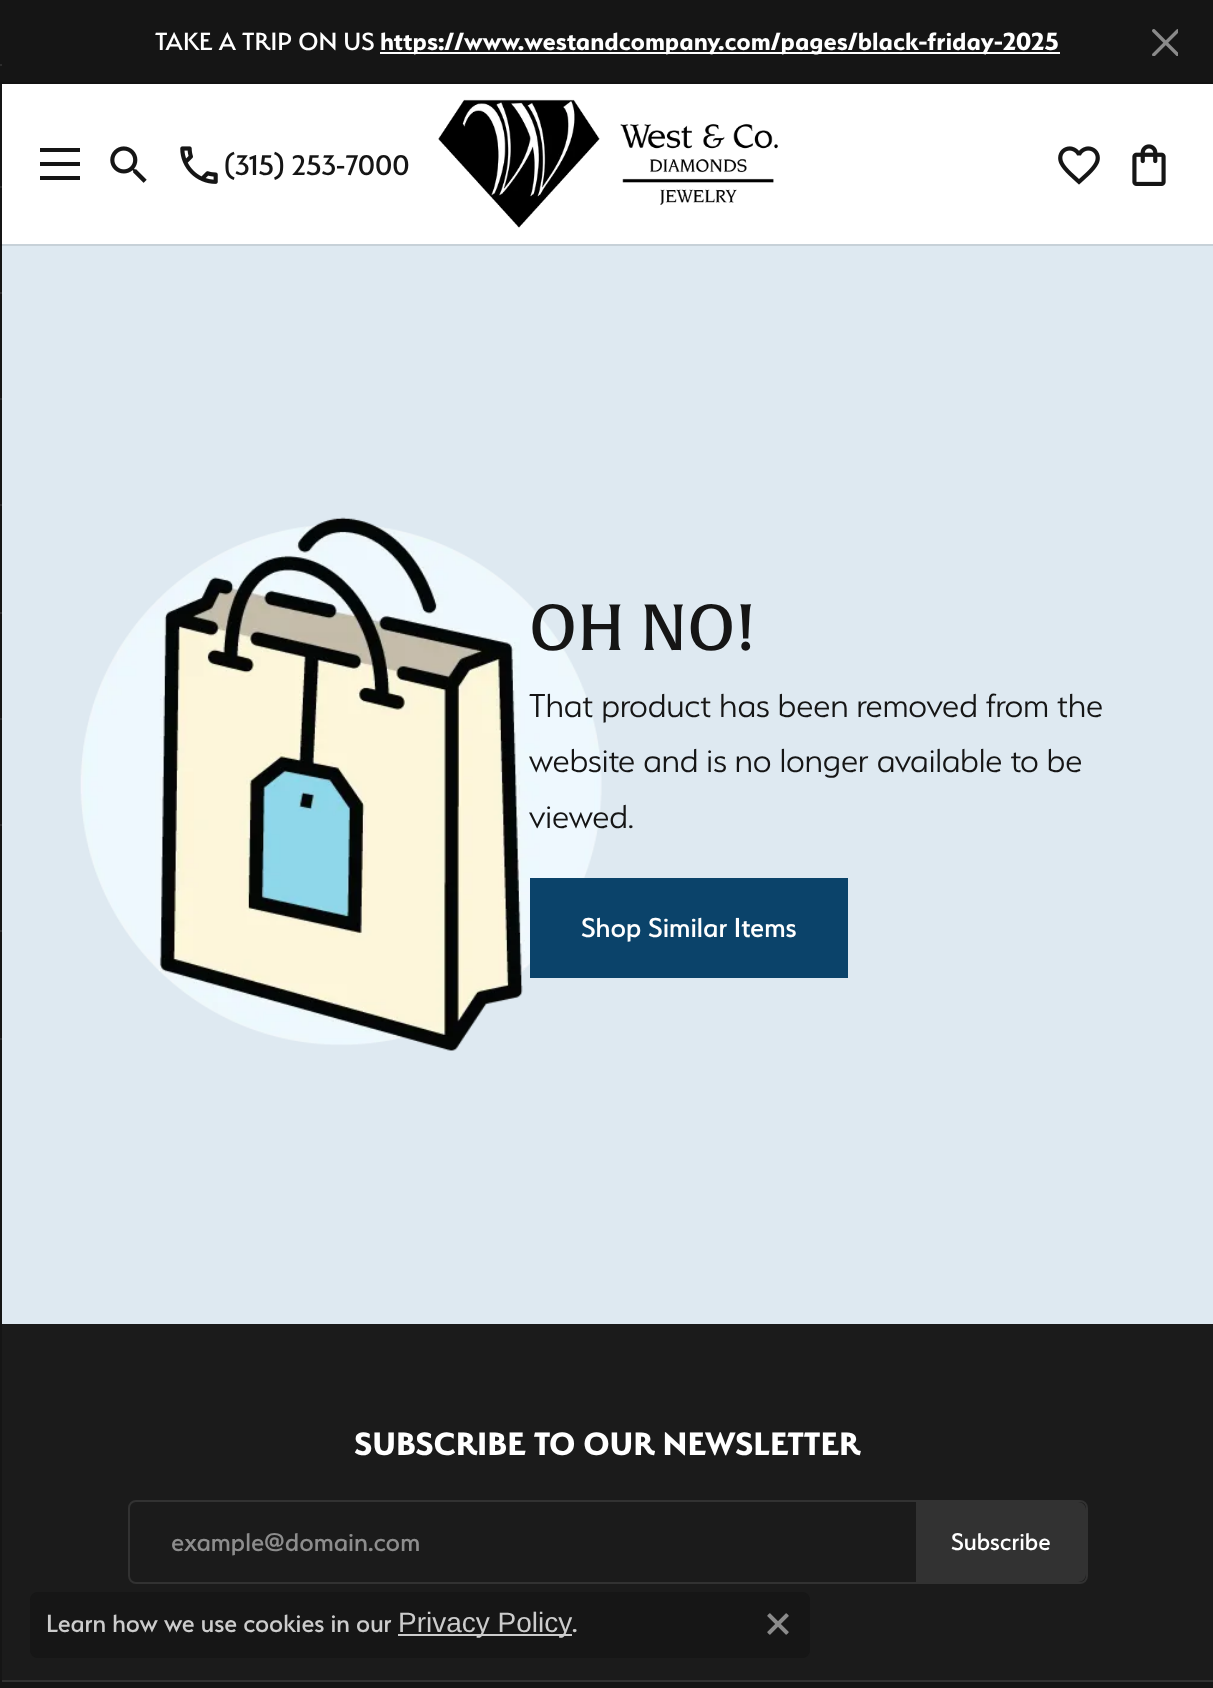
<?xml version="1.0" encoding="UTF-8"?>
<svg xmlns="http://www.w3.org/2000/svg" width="1213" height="1688">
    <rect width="100%" height="100%" fill="#151515"/>
    <text x="155" y="50" font-family="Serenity" font-size="28" font-weight="500" fill="#FFFFFF">TAKE A TRIP ON US</text>
    <rect x="380" y="52" width="680" height="2" fill="#FFFFFF"/>
    <text x="380" y="50" font-family="Serenity" font-size="28" font-weight="700" fill="#FFFFFF">https://www.westandcompany.com/pages/black-friday-2025</text>
    <image x="1152" y="29" width="26" height="27" href="img_01.png"/>
    <rect x="2" y="244" width="1211" height="1080" fill="#DEE9F1"/>
    <rect x="-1" y="83" width="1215" height="162" fill="none" stroke="#000000" stroke-opacity="0.1" stroke-width="2"/>
    <rect x="2" y="84" width="1211" height="160" fill="#FFFFFF"/>
    <rect x="0" y="1680" width="1213" height="2" fill="#323232"/>
    <rect x="0" y="1680" width="2" height="8" fill="#151515"/>
    <rect x="0" y="64" width="2" height="2" fill="#2C2C2C"/>
    <rect x="0" y="186" width="2" height="2" fill="#2C2C2C"/>
    <rect x="0" y="292" width="2" height="2" fill="#2C2C2C"/>
    <rect x="0" y="398" width="2" height="2" fill="#2C2C2C"/>
    <rect x="0" y="504" width="2" height="2" fill="#2C2C2C"/>
    <rect x="0" y="612" width="2" height="2" fill="#2C2C2C"/>
    <rect x="0" y="718" width="2" height="2" fill="#2C2C2C"/>
    <rect x="0" y="824" width="2" height="2" fill="#2C2C2C"/>
    <rect x="0" y="930" width="2" height="2" fill="#2C2C2C"/>
    <rect x="0" y="1038" width="2" height="2" fill="#2C2C2C"/>
    <rect x="40" y="148" width="40" height="4" fill="#151515"/>
    <rect x="40" y="162" width="40" height="4" fill="#151515"/>
    <rect x="40" y="176" width="40" height="4" fill="#151515"/>
    <image x="110" y="146" width="37" height="37" href="img_02.png"/>
    <image x="180" y="146" width="38" height="38" href="img_03.png"/>
    <text x="224" y="175" font-family="Serenity" font-size="32" font-weight="500" fill="#151515">(315) 253-7000</text>
    <image x="438" y="99" width="340" height="129" href="img_04.png"/>
    <image x="1058" y="146" width="42" height="39" href="img_05.png"/>
    <image x="1132" y="144" width="34" height="42" href="img_06.png"/>
    <image x="80" y="517" width="522" height="534" href="img_07.png"/>
    <text x="529" y="650" font-family="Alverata" font-size="64" font-weight="500" fill="#151515">OH NO!</text>
    <text font-family="Serenity" font-size="37.25" font-weight="300" fill="#151515">
        <tspan x="529" y="717">That product has been removed from the</tspan>
        <tspan x="529" y="772">website and is no longer available to be</tspan>
        <tspan x="529" y="828">viewed.</tspan>
    </text>
    <rect x="530" y="878" width="318" height="100" fill="#0B436A"/>
    <text x="581" y="937" font-family="Serenity" font-size="30.75" font-weight="500" fill="#FFFFFF">Shop Similar Items</text>
    <rect x="2" y="1324" width="1211" height="356" fill="#1B1B1B"/>
    <text x="354" y="1455" font-family="Serenity" font-size="36.2" font-weight="700" fill="#FFFFFF">SUBSCRIBE TO OUR NEWSLETTER</text>
    <rect x="129" y="1501" width="958" height="82" rx="7" fill="none" stroke="#323232" stroke-width="2"/>
    <text x="171" y="1551" font-family="Serenity" font-size="28.75" font-weight="500" fill="#8D8D8D">example@domain.com</text>
    <path d="M 916 1502 H 1078 C 1082.5 1502 1086 1505.5 1086 1510 V 1574 C 1086 1578.5 1082.5 1582 1078 1582 H 916 Z" fill="#323232"/>
    <text x="951" y="1550" font-family="Serenity" font-size="27" font-weight="500" fill="#FFFFFF">Subscribe</text>
    <rect x="30" y="1592" width="780" height="66" rx="8" fill="#161616"/>
    <text x="46" y="1632" font-family="Serenity" font-size="28" font-weight="500" fill="#CCCCCC">Learn how we use cookies in our</text>
    <rect x="398" y="1634" width="174" height="2" fill="#CCCCCC"/>
    <text x="398" y="1632" font-family="Liberation Sans" font-size="28" fill="#CCCCCC">Privacy Policy</text>
    <text x="572" y="1632" font-family="Serenity" font-size="28" font-weight="500" fill="#CCCCCC">.</text>
    <image x="767" y="1613" width="22" height="22" href="img_08.png"/>
</svg>
